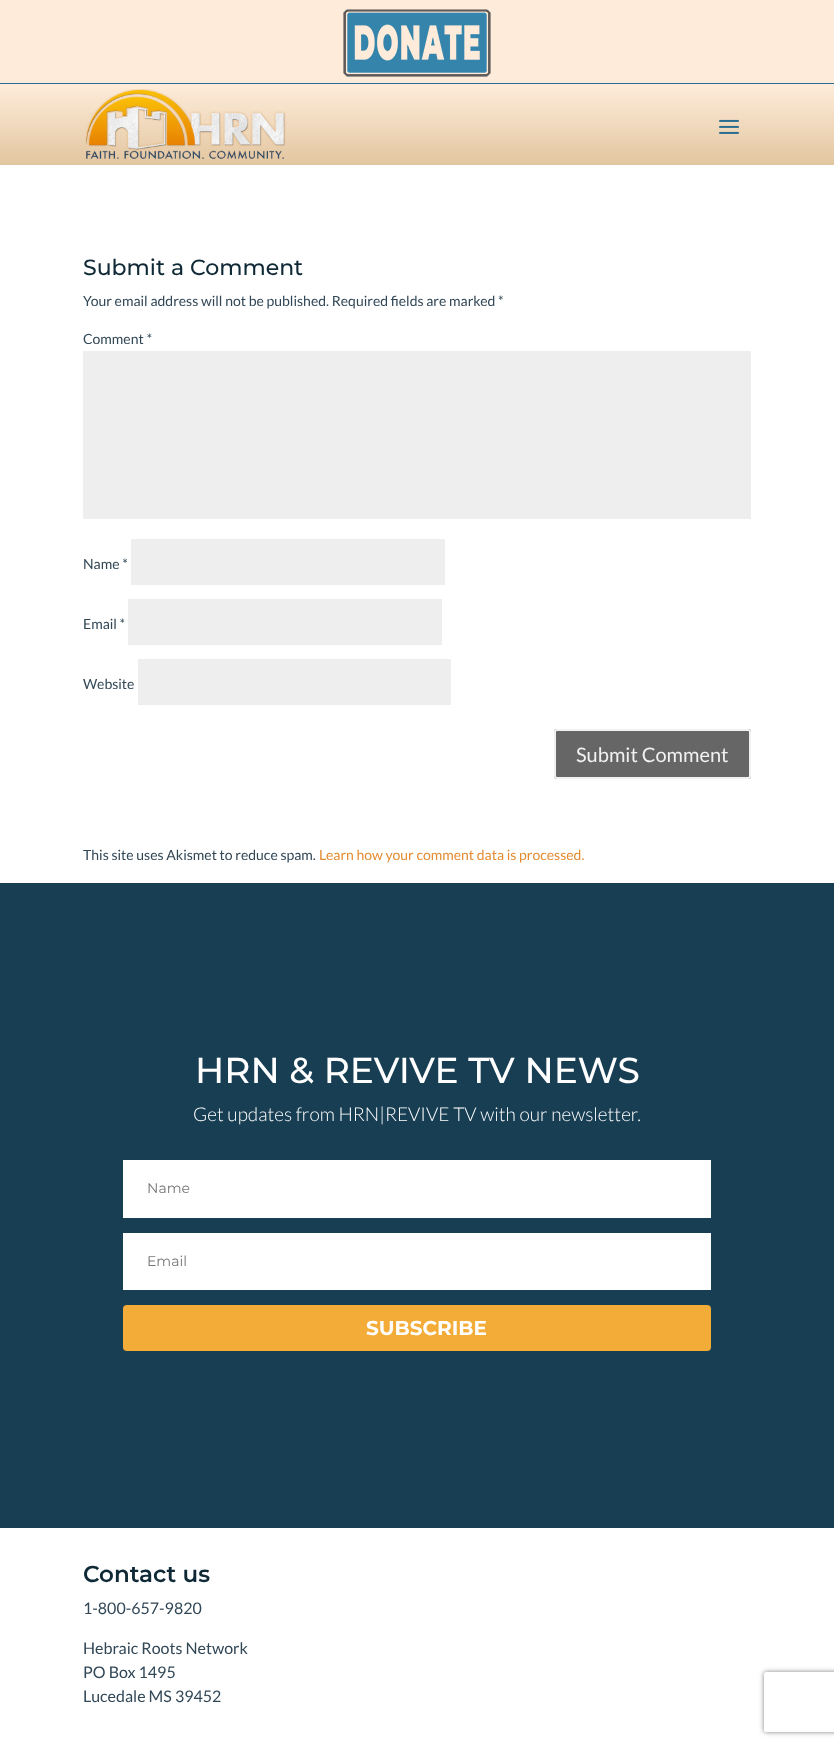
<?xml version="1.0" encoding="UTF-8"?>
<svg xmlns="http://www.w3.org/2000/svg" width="834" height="1746">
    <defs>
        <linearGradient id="g1" gradientUnits="userSpaceOnUse" x1="417" y1="84" x2="417" y2="165"><stop offset="0" stop-color="#FEECDA"/><stop offset="1" stop-color="#E3C6A0"/></linearGradient>
        <clipPath id="clip1"><path d="M 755 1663 H 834 V 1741 H 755 Z M 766 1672 H 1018 C 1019 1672 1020 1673 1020 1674 V 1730 C 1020 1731 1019 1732 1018 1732 H 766 C 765 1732 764 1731 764 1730 V 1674 C 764 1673 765 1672 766 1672 Z" clip-rule="evenodd"/></clipPath>
        <filter id="blur1" x="-50%" y="-200%" width="200%" height="500%"><feGaussianBlur stdDeviation="2.5"/></filter>
    </defs>
    <rect width="100%" height="100%" fill="#FFFFFF"/>
    <rect x="0" y="0" width="834" height="83" fill="#FEEBDA"/>
    <rect x="0" y="83" width="834" height="1" fill="#296C91"/>
    <image x="343" y="9" width="148" height="68" href="img_01.png"/>
    <rect x="0" y="84" width="834" height="81" fill="url(#g1)"/>
    <image x="85" y="89" width="201" height="71" href="img_02.png"/>
    <image x="719" y="119" width="20" height="15" href="img_03.png"/>
    <text x="83" y="275" font-family="Montserrat" font-size="22" font-weight="500" fill="#0F2936">Submit a Comment</text>
    <text x="83" y="306" font-family="Lato" font-size="14" fill="#314756">Your email address will not be published. Required fields are marked *</text>
    <text x="83" y="344" font-family="Lato" font-size="14" fill="#314756">Comment *</text>
    <rect x="83" y="351" width="668" height="168" fill="#EEEEEE"/>
    <text x="83" y="569" font-family="Lato" font-size="14" fill="#314756">Name *</text>
    <rect x="131" y="539" width="314" height="46" fill="#EEEEEE"/>
    <text x="83" y="629" font-family="Lato" font-size="14" fill="#314756">Email *</text>
    <rect x="128" y="599" width="314" height="46" fill="#EEEEEE"/>
    <text x="83" y="689" font-family="Lato" font-size="14" fill="#314756">Website</text>
    <rect x="138" y="659" width="313" height="46" fill="#EEEEEE"/>
    <rect x="554" y="729" width="197" height="50" rx="3" fill="#666666"/>
    <rect x="555" y="730" width="195" height="48" rx="2" fill="none" stroke="#FFFFFF" stroke-opacity="0.91" stroke-width="2"/>
    <text x="576" y="762" font-family="Lato" font-size="20" fill="#F1F1F1">Submit Comment</text>
    <text x="83" y="860" font-family="Lato" font-size="14" fill="#314756">This site uses Akismet to reduce spam.</text>
    <text x="319" y="860" font-family="Lato" font-size="14" fill="#E48C33">Learn how your comment data is processed.</text>
    <rect x="0" y="883" width="834" height="645" fill="#183E53"/>
    <text x="195" y="1083" font-family="Montserrat" font-size="36" font-weight="500" fill="#FFFFFF">HRN &amp; REVIVE TV NEWS</text>
    <text x="193" y="1121" font-family="Lato" font-size="19" font-weight="300" fill="#FFFFFF">Get updates from HRN|REVIVE TV with our newsletter.</text>
    <rect x="123" y="1160" width="588" height="58" fill="#FFFFFF"/>
    <text x="147" y="1193" font-family="Montserrat" font-size="14" fill="#757575">Name</text>
    <rect x="123" y="1233" width="588" height="57" fill="#FFFFFF"/>
    <text x="147" y="1266" font-family="Montserrat" font-size="14" fill="#757575">Email</text>
    <rect x="123" y="1305" width="588" height="46" rx="4" fill="#F4AC39"/>
    <text x="366" y="1335" font-family="Montserrat" font-size="20" font-weight="700" fill="#FFFFFF">SUBSCRIBE</text>
    <text x="83" y="1582" font-family="Montserrat" font-size="23" font-weight="600" fill="#0F2936">Contact us</text>
    <text x="83" y="1614" font-family="Lato" font-size="16" fill="#314756">1-800-657-9820</text>
    <text font-family="Lato" font-size="16" fill="#314756">
        <tspan x="83" y="1654">Hebraic Roots Network</tspan>
        <tspan x="83" y="1678">PO Box 1495</tspan>
        <tspan x="83" y="1702">Lucedale MS 39452</tspan>
    </text>
    <g clip-path="url(#clip1)">
        <rect x="764" y="1672" width="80" height="60" rx="2" fill="#808080" filter="url(#blur1)"/>
    </g>
</svg>
